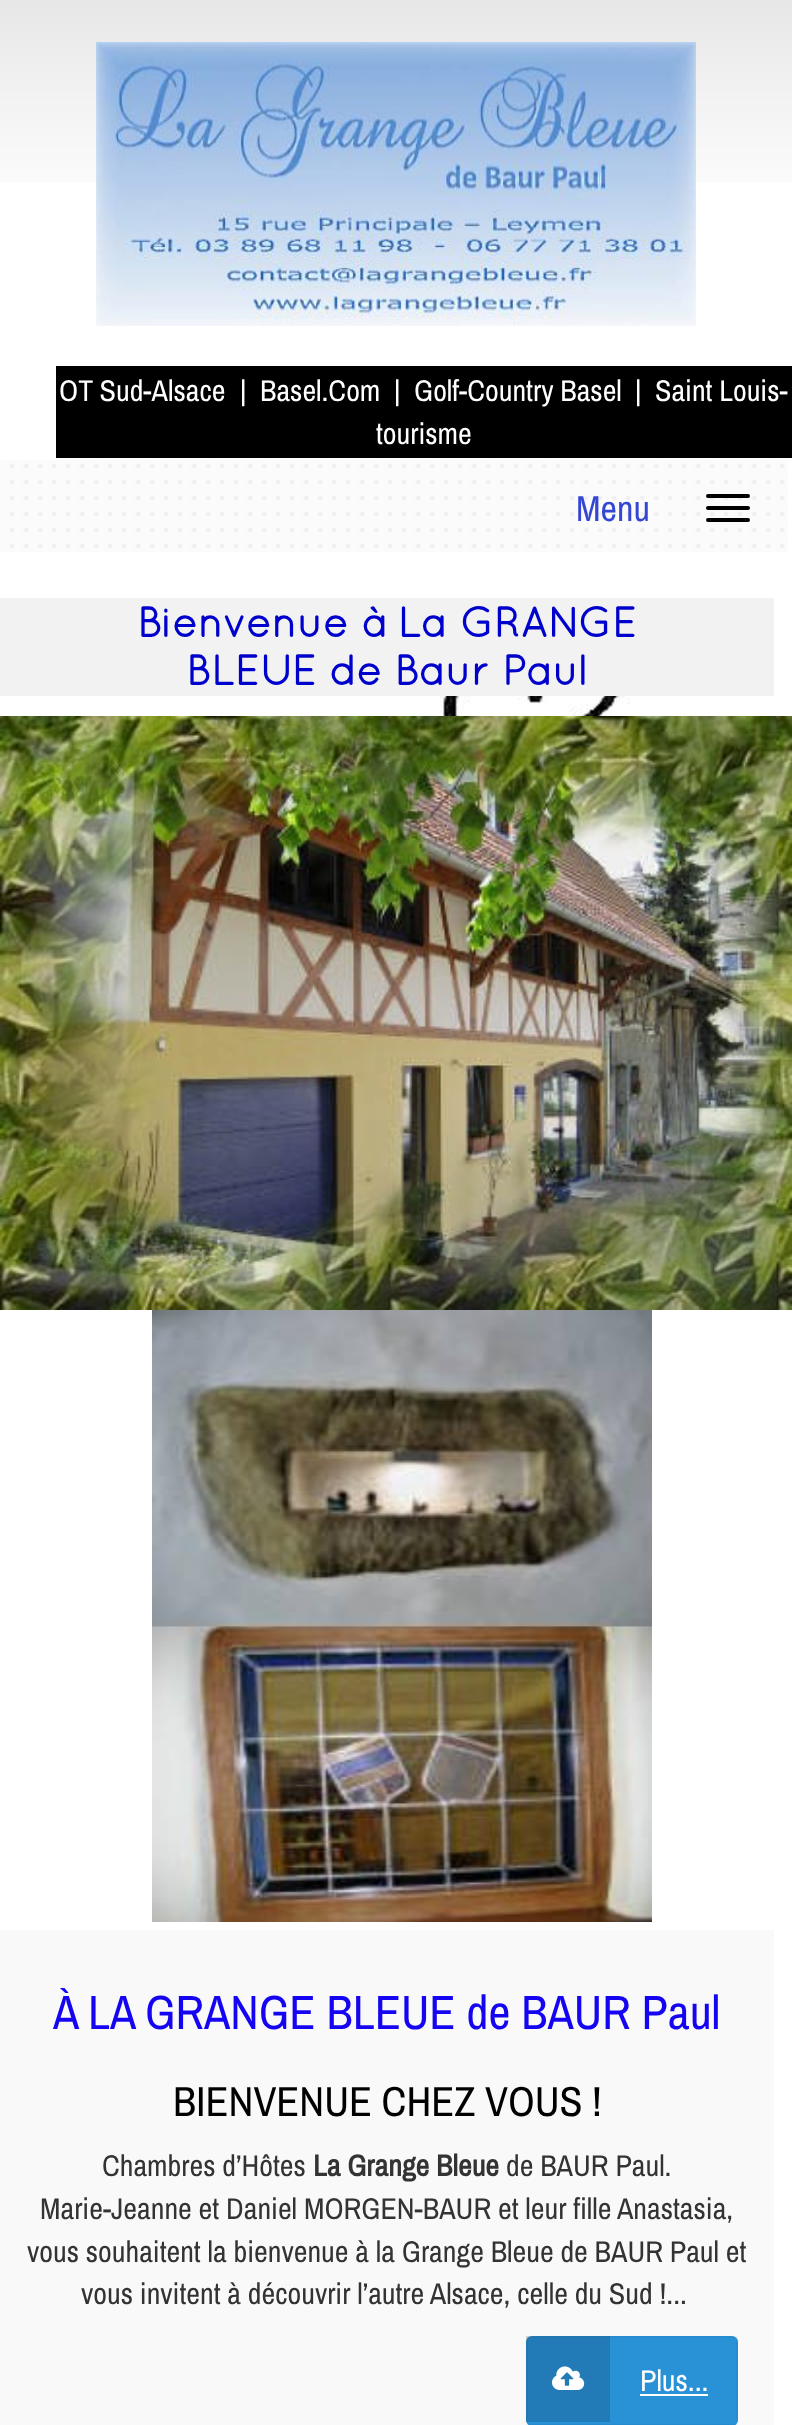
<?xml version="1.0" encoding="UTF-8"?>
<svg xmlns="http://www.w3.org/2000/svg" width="792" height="2425">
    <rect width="100%" height="100%" fill="#FFFFFF"/>
    <image x="440" y="696" width="190" height="20" href="img_01.png"/>
    <image x="0" y="0" width="792" height="182" href="img_02.png"/>
    <image x="96" y="42" width="600" height="284" href="img_03.png"/>
    <rect x="56" y="366" width="736" height="92" fill="#000000"/>
    <text x="59" y="401" font-family="Archivo Narrow" font-size="30" fill="#FFFFFF">OT Sud-Alsace</text>
    <text x="240" y="401" font-family="Archivo Narrow" font-size="30" fill="#FFFFFF">|</text>
    <text x="260" y="401" font-family="Archivo Narrow" font-size="30" fill="#FFFFFF">Basel.Com</text>
    <text x="394" y="401" font-family="Archivo Narrow" font-size="30" fill="#FFFFFF">|</text>
    <text x="414" y="401" font-family="Archivo Narrow" font-size="30" fill="#FFFFFF">Golf-Country Basel</text>
    <text x="635" y="401" font-family="Archivo Narrow" font-size="30" fill="#FFFFFF">|</text>
    <text x="655" y="401" font-family="Archivo Narrow" font-size="30" fill="#FFFFFF">Saint Louis-</text>
    <text x="376" y="444" font-family="Archivo Narrow" font-size="30" fill="#FFFFFF">tourisme</text>
    <image x="0" y="460" width="788" height="92" href="img_04.png"/>
    <text x="576" y="521" font-family="Archivo Narrow" font-size="36" fill="#3346D4">Menu</text>
    <rect x="706" y="494" width="44" height="4" rx="2" fill="#000000"/>
    <rect x="706" y="506" width="44" height="4" rx="2" fill="#000000"/>
    <rect x="706" y="518" width="44" height="4" rx="2" fill="#000000"/>
    <rect x="0" y="598" width="774" height="98" fill="#F2F2F2"/>
    <text x="137" y="637" font-family="Quicksand" font-size="42" font-weight="700" fill="#0000CD">Bienvenue à La GRANGE</text>
    <text x="186" y="685" font-family="Quicksand" font-size="42" font-weight="700" fill="#0000CD">BLEUE de Baur Paul</text>
    <image x="0" y="716" width="792" height="594" href="img_05.png"/>
    <image x="152" y="1310" width="500" height="612" href="img_06.png"/>
    <rect x="0" y="1930" width="774" height="495" fill="#F9F9F9"/>
    <text x="53" y="2029" font-family="Archivo Narrow" font-size="48" fill="#1404F2">À LA GRANGE BLEUE de BAUR Paul</text>
    <text x="173" y="2116" font-family="Archivo Narrow" font-size="42" fill="#000000">BIENVENUE CHEZ VOUS !</text>
    <text x="102" y="2176" font-family="Archivo Narrow" font-size="30" fill="#333333">Chambres d’Hôtes</text>
    <text x="313" y="2176" font-family="Archivo Narrow" font-size="30" font-weight="700" fill="#333333">La Grange Bleue</text>
    <text x="506" y="2176" font-family="Archivo Narrow" font-size="30" fill="#333333">de BAUR Paul.</text>
    <text x="40" y="2219" font-family="Archivo Narrow" font-size="30" fill="#333333">Marie-Jeanne et Daniel MORGEN-BAUR et leur fille Anastasia,</text>
    <text x="27" y="2262" font-family="Archivo Narrow" font-size="30" fill="#333333">vous souhaitent la bienvenue à la Grange Bleue de BAUR Paul et</text>
    <text x="81" y="2304" font-family="Archivo Narrow" font-size="30" fill="#333333">vous invitent à découvrir l’autre Alsace, celle du Sud !...</text>
    <rect x="526" y="2336" width="212" height="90" rx="6" fill="#2991D6"/>
    <rect x="527" y="2337" width="210" height="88" fill="none" stroke="#000000" stroke-opacity="0.03" stroke-width="2"/>
    <rect x="526" y="2336" width="84" height="86" fill="#000000" fill-opacity="0.15"/>
    <image x="552" y="2366" width="33" height="24" href="img_07.png"/>
    <text x="640" y="2391" font-family="Archivo Narrow" font-size="30" fill="#FFFFFF">Plus...</text>
    <rect x="640" y="2394" width="68" height="2" fill="#FFFFFF"/>
</svg>
